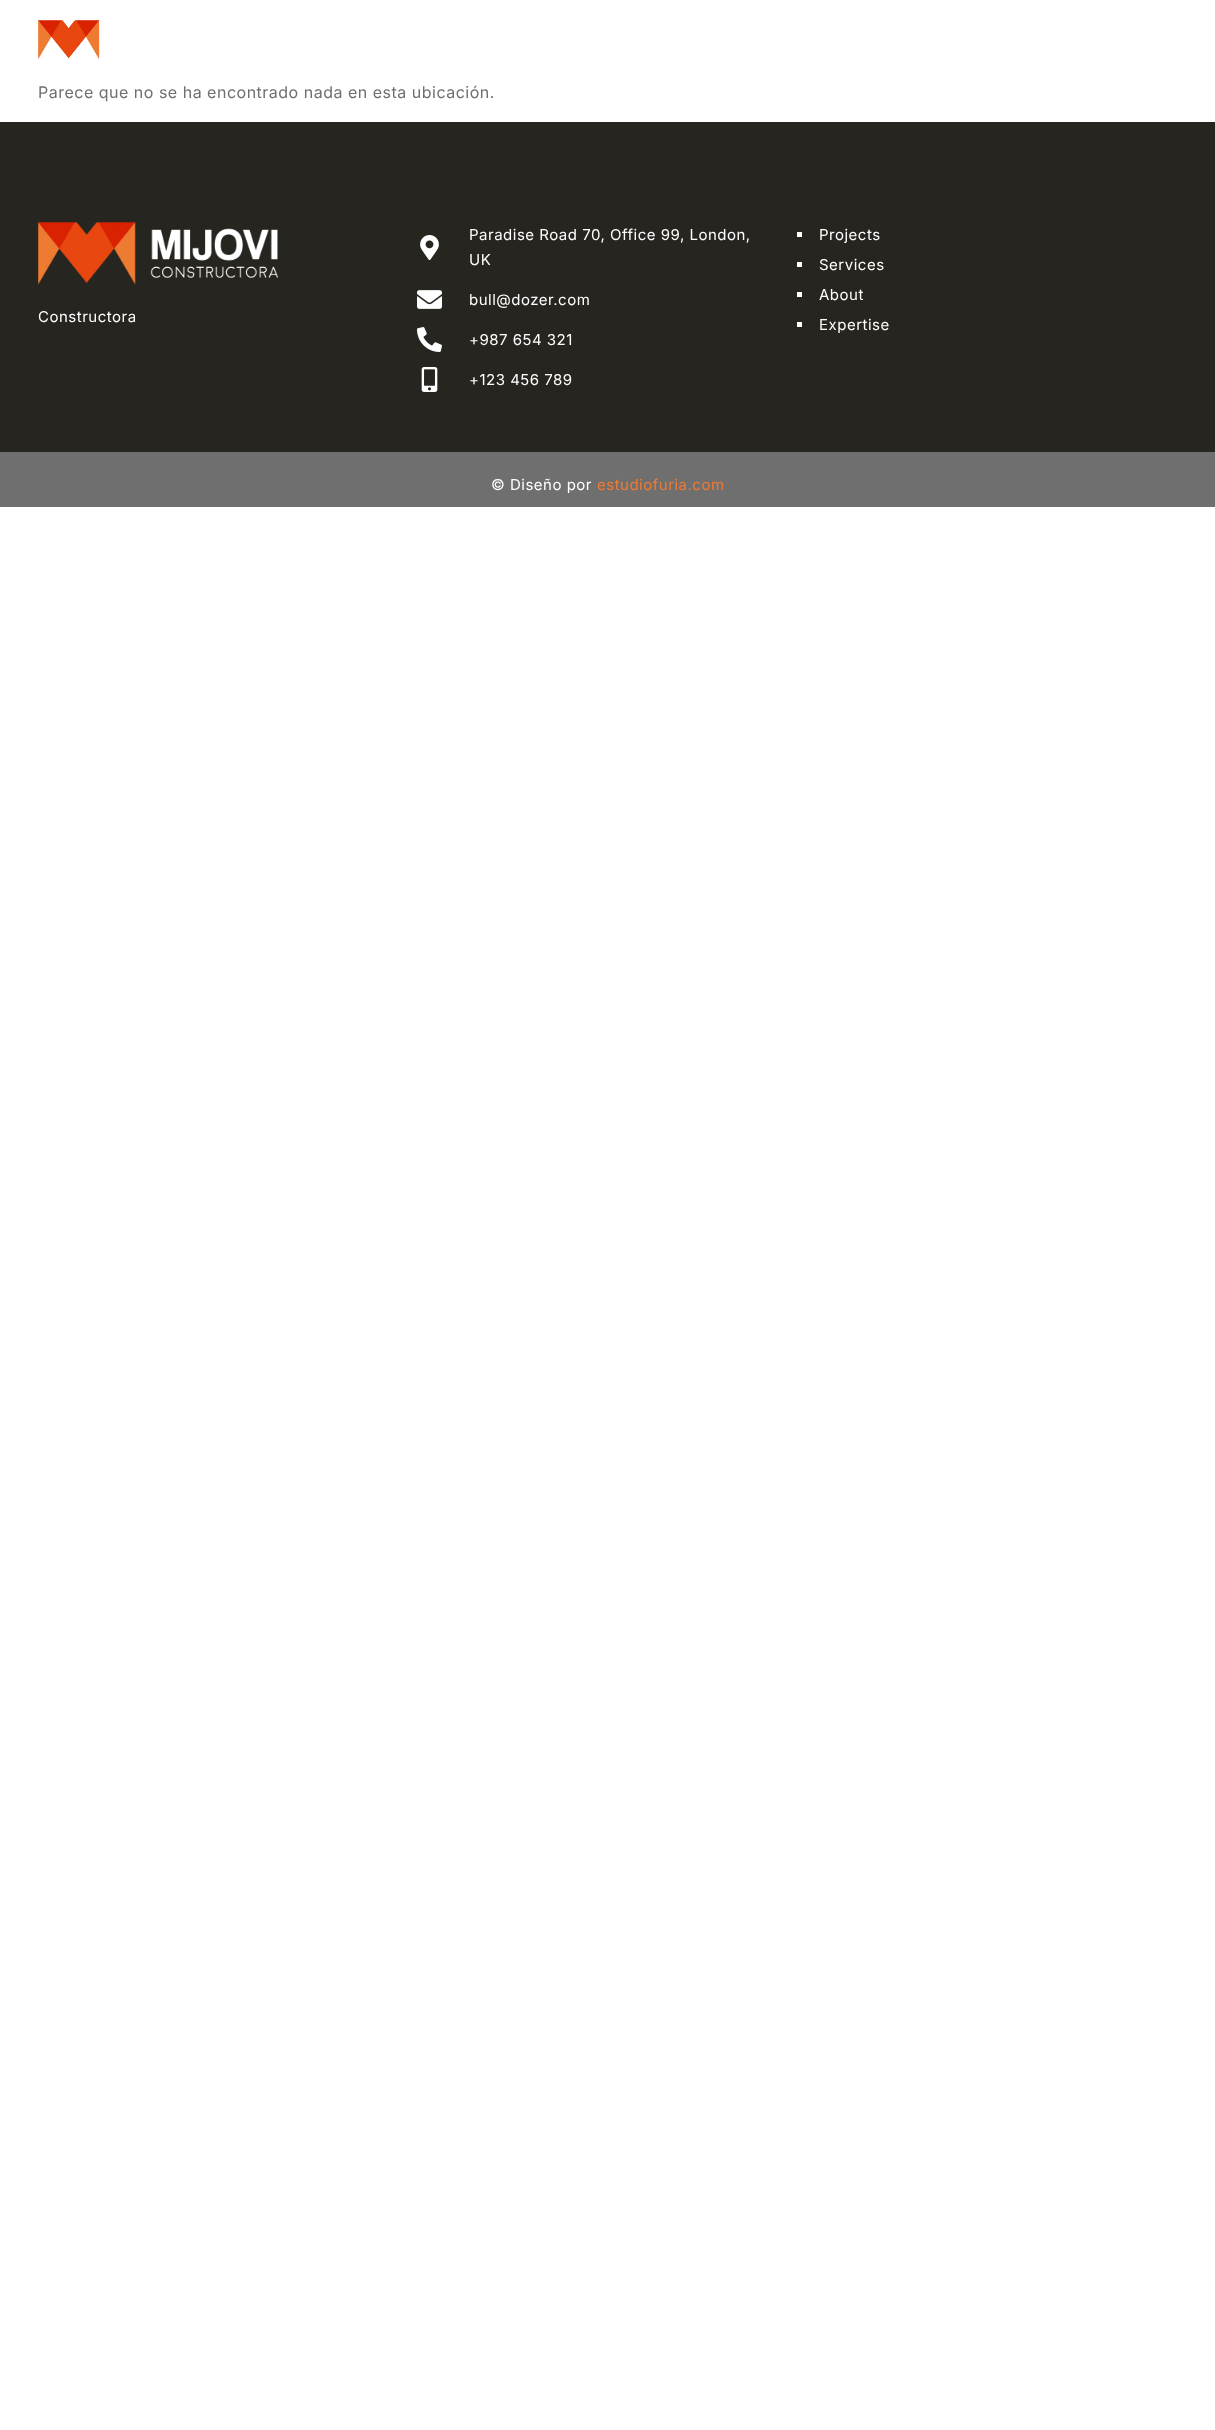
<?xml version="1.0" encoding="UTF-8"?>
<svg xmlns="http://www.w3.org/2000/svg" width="1215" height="2430">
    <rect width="100%" height="100%" fill="#FFFFFF"/>
    <image x="38" y="20" width="62" height="39" href="img_01.png"/>
    <text x="38" y="98" font-family="Inter" font-size="16" letter-spacing="0.5" fill="#706F6F">Parece que no se ha encontrado nada en esta ubicación.</text>
    <rect x="0" y="122" width="1215" height="330" fill="#27251F"/>
    <image x="38" y="222" width="240" height="62" href="img_02.png"/>
    <text x="38" y="322" font-family="Inter" font-size="15" letter-spacing="0.5" fill="#FFFFFF">Constructora</text>
    <image x="420" y="235" width="19" height="25" href="img_03.png"/>
    <text font-family="Inter" font-size="15" letter-spacing="0.5" fill="#FFFFFF">
        <tspan x="469" y="240">Paradise Road 70, Office 99, London,</tspan>
        <tspan x="469" y="265">UK</tspan>
    </text>
    <image x="417" y="290" width="25" height="19" href="img_04.png"/>
    <text x="469" y="305" font-family="Inter" font-size="15" letter-spacing="0.5" fill="#FFFFFF">bull@dozer.com</text>
    <image x="417" y="327" width="25" height="25" href="img_05.png"/>
    <text x="469" y="345" font-family="Inter" font-size="15" letter-spacing="0.5" fill="#FFFFFF">+987 654 321</text>
    <image x="421" y="367" width="17" height="25" href="img_06.png"/>
    <text x="469" y="385" font-family="Inter" font-size="15" letter-spacing="0.5" fill="#FFFFFF">+123 456 789</text>
    <rect x="797" y="232" width="5" height="5" fill="#FFFFFF"/>
    <text x="819" y="240" font-family="Inter" font-size="15" letter-spacing="0.5" fill="#FFFFFF">Projects</text>
    <rect x="797" y="262" width="5" height="5" fill="#FFFFFF"/>
    <text x="819" y="270" font-family="Inter" font-size="15" letter-spacing="0.5" fill="#FFFFFF">Services</text>
    <rect x="797" y="292" width="5" height="5" fill="#FFFFFF"/>
    <text x="819" y="300" font-family="Inter" font-size="15" letter-spacing="0.5" fill="#FFFFFF">About</text>
    <rect x="797" y="322" width="5" height="5" fill="#FFFFFF"/>
    <text x="819" y="330" font-family="Inter" font-size="15" letter-spacing="0.5" fill="#FFFFFF">Expertise</text>
    <rect x="0" y="452" width="1215" height="55" fill="#706F6F"/>
    <text x="491" y="490" font-family="Inter" font-size="15" letter-spacing="0.5" fill="#FFFFFF">© Diseño por</text>
    <text x="597" y="490" font-family="Inter" font-size="15" letter-spacing="0.5" fill="#EF7B33">estudiofuria.com</text>
</svg>
